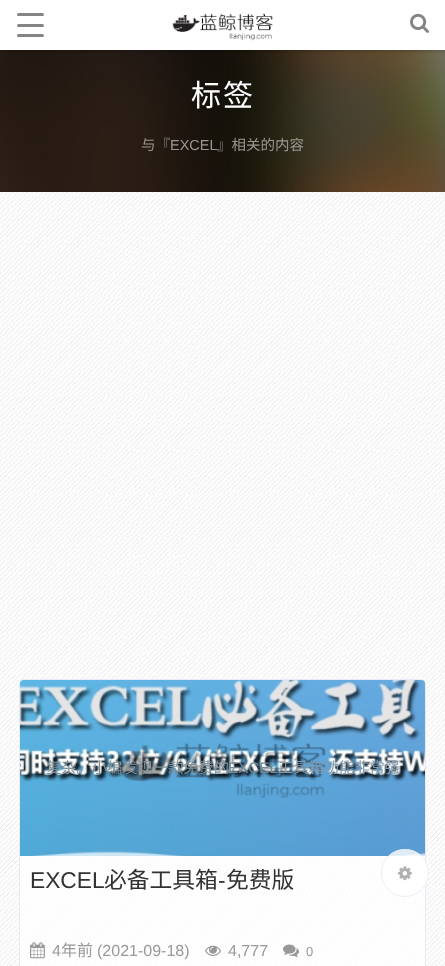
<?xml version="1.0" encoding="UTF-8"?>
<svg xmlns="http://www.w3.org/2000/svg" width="445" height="966">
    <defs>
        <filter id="blur1" x="-50%" y="-200%" width="200%" height="500%"><feGaussianBlur stdDeviation="2.5"/></filter>
    </defs>
    <rect width="100%" height="100%" fill="#FFFFFF"/>
    <image x="0" y="192" width="445" height="774" href="img_01.png"/>
    <image x="0" y="50" width="445" height="142" href="img_04.png"/>
    <rect x="5" y="0" width="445" height="50" fill="#000000" fill-opacity="0.33" filter="url(#blur1)"/>
    <rect x="0" y="0" width="445" height="50" fill="#FFFFFF"/>
    <rect x="17" y="13" width="27" height="3" rx="1.5" fill="#848484"/>
    <rect x="17" y="24" width="27" height="3" rx="1.5" fill="#848484"/>
    <rect x="17" y="34" width="27" height="3" rx="1.5" fill="#848484"/>
    <image x="172" y="13" width="101" height="28" href="img_02.png"/>
    <image x="410" y="13" width="19" height="20" href="img_03.png"/>
    <text x="191" y="106" font-family="Noto Sans CJK SC" font-size="30" letter-spacing="2" fill="#FFFFFF">标签</text>
    <text x="141" y="150" font-family="Noto Sans CJK SC" font-size="14.5" fill="#9B9692">与『</text>
    <text x="170" y="150" font-family="Liberation Sans" font-size="14.5" fill="#9B9692">EXCEL</text>
    <text x="217" y="150" font-family="Noto Sans CJK SC" font-size="14.5" fill="#9B9692">』相关的内容</text>
    <rect x="19.5" y="679.5" width="406" height="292" rx="4.5" fill="#FFFFFF" fill-opacity="0.73" stroke="#E6EBF5"/>
    <image x="20" y="680" width="405" height="176" href="img_05.png"/>
    <text x="46" y="773" font-family="Noto Sans CJK SC" font-size="15.25" fill="#809099">复杂。小编发现一款免费的</text>
    <text x="228" y="773" font-family="Liberation Sans" font-size="15.25" fill="#748996">EXCEL</text>
    <text x="278" y="773" font-family="Noto Sans CJK SC" font-size="15.25" fill="#839BAC">工具箱功能非常强</text>
    <text x="30" y="888" font-family="Liberation Sans" font-size="22.75" fill="#323232">EXCEL</text>
    <text x="104" y="888" font-family="Noto Sans CJK SC" font-size="22.75" fill="#323232">必备工具箱</text>
    <text x="218" y="888" font-family="Liberation Sans" font-size="22.75" fill="#323232">-</text>
    <text x="226" y="888" font-family="Noto Sans CJK SC" font-size="22.75" fill="#323232">免费版</text>
    <image x="30" y="942" width="15" height="17" href="img_06.png"/>
    <text x="52" y="956" font-family="Liberation Sans" font-size="16" fill="#999999">4</text>
    <text x="61" y="956" font-family="Noto Sans CJK SC" font-size="16" fill="#999999">年前</text>
    <text x="97" y="956" font-family="Liberation Sans" font-size="16" fill="#999999">(2021-09-18)</text>
    <image x="205" y="945" width="16" height="11" href="img_07.png"/>
    <text x="228" y="956" font-family="Liberation Sans" font-size="16" fill="#999999">4,777</text>
    <image x="283" y="944" width="16" height="14" href="img_08.png"/>
    <text x="306" y="956" font-family="Liberation Sans" font-size="13" fill="#999999">0</text>
    <circle cx="405" cy="873" r="24" fill="#FFFFFF" fill-opacity="0.8"/>
    <circle cx="405" cy="873" r="23.5" fill="none" stroke="#E6EBF5" stroke-opacity="0.8"/>
    <image x="398" y="866" width="14" height="15" href="img_09.png"/>
</svg>
